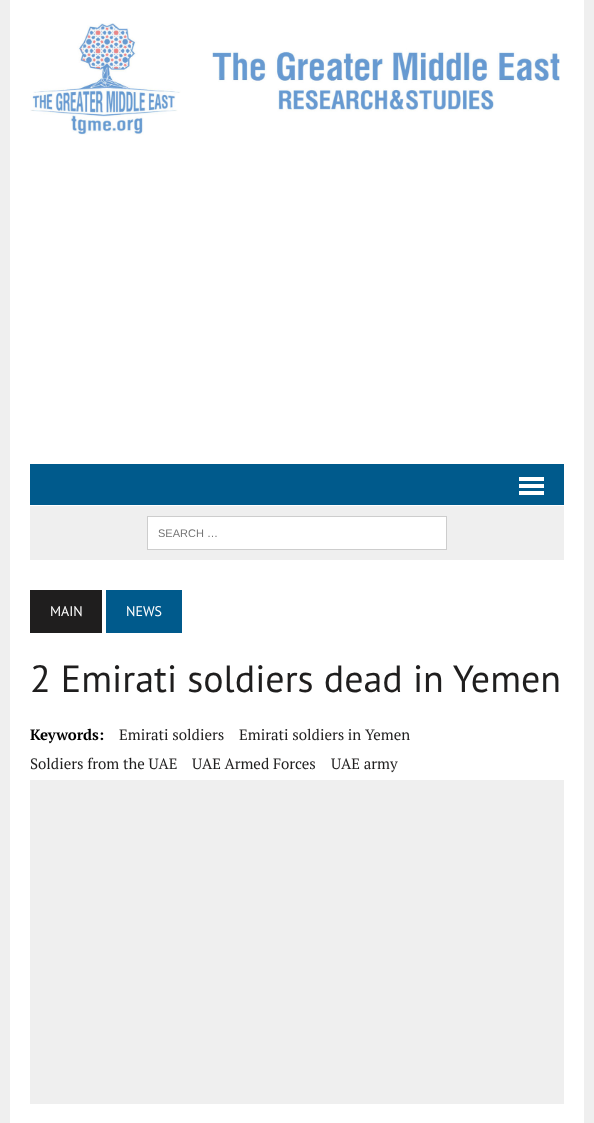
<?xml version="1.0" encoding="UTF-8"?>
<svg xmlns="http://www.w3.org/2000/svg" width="594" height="1123">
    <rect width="100%" height="100%" fill="#EFEFEF"/>
    <rect x="10" y="0" width="574" height="1123" fill="#FFFFFF"/>
    <image x="30" y="23" width="530" height="112" href="img_01.png"/>
    <rect x="30" y="464" width="534" height="41" fill="#005A8C"/>
    <rect x="519" y="477" width="25" height="4" fill="#FFFFFF"/>
    <rect x="519" y="484" width="25" height="4" fill="#FFFFFF"/>
    <rect x="519" y="491" width="25" height="4" fill="#FFFFFF"/>
    <rect x="30" y="506" width="534" height="54" fill="#EFEFEF"/>
    <rect x="147.5" y="516.5" width="299" height="33" fill="#FFFFFF" stroke="#CDCDCD"/>
    <text x="158" y="537" font-family="Liberation Sans" font-size="11" fill="#757575">SEARCH …</text>
    <rect x="30" y="590" width="72" height="43" fill="#1F1E1E"/>
    <text x="50" y="616" font-family="PT Sans" font-size="14" fill="#FFFFFF">MAIN</text>
    <rect x="106" y="590" width="76" height="43" fill="#005A8C"/>
    <text x="126" y="616" font-family="PT Sans" font-size="14" fill="#FFFFFF">NEWS</text>
    <text x="30" y="692" font-family="PT Sans" font-size="38" fill="#1F1E1E">2 Emirati soldiers dead in Yemen</text>
    <text x="30" y="740" font-family="PT Serif" font-size="15" font-weight="700" fill="#000000">Keywords:</text>
    <text x="119" y="740" font-family="PT Serif" font-size="15" fill="#1F1E1E">Emirati soldiers</text>
    <text x="239" y="740" font-family="PT Serif" font-size="15" fill="#1F1E1E">Emirati soldiers in Yemen</text>
    <text x="30" y="769" font-family="PT Serif" font-size="15" fill="#1F1E1E">Soldiers from the UAE</text>
    <text x="192" y="769" font-family="PT Serif" font-size="15" fill="#1F1E1E">UAE Armed Forces</text>
    <text x="331" y="769" font-family="PT Serif" font-size="15" fill="#1F1E1E">UAE army</text>
    <rect x="30" y="780" width="534" height="324" fill="#EFEFEF"/>
</svg>
